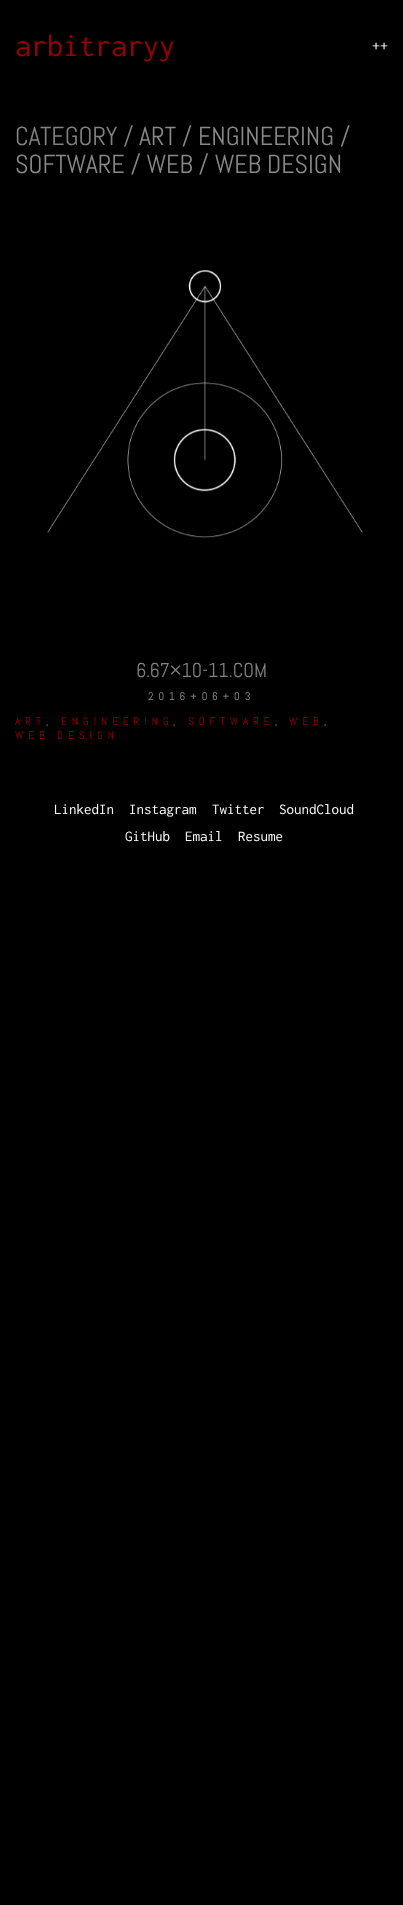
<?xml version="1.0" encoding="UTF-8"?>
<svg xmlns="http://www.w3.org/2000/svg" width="403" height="1905">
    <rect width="100%" height="100%" fill="#000000"/>
    <text x="15" y="56" font-family="Inconsolata" font-size="32" fill="#990000">arbitraryy</text>
    <text x="372" y="51" font-family="Inconsolata" font-size="16" fill="#FFFFFF">++</text>
    <text x="15" y="145" font-family="Abel" font-size="26" fill="#828282">CATEGORY /</text>
    <text x="139" y="145" font-family="Abel" font-size="26" fill="#898989">ART / ENGINEERING /</text>
    <text x="15" y="173" font-family="Abel" font-size="26" fill="#898989">SOFTWARE / WEB / WEB DESIGN</text>
    <image x="47" y="270" width="316" height="268" href="img_01.png"/>
    <text x="136" y="677" font-family="Abel" font-size="20" fill="#828282">6.67×10-11.COM</text>
    <text x="148" y="700" font-family="Abel" font-size="11" letter-spacing="5" fill="#999999">2016+06+03</text>
    <text x="15" y="725" font-family="Abel" font-size="11" letter-spacing="5" fill="#990000">ART</text>
    <text x="61" y="725" font-family="Abel" font-size="11" letter-spacing="5" fill="#990000">ENGINEERING</text>
    <text x="188" y="725" font-family="Abel" font-size="11" letter-spacing="5" fill="#990000">SOFTWARE</text>
    <text x="289" y="725" font-family="Abel" font-size="11" letter-spacing="5" fill="#990000">WEB</text>
    <text x="46" y="725" font-family="Abel" font-size="11" letter-spacing="5" fill="#999999">,</text>
    <text x="173" y="725" font-family="Abel" font-size="11" letter-spacing="5" fill="#999999">,</text>
    <text x="275" y="725" font-family="Abel" font-size="11" letter-spacing="5" fill="#999999">,</text>
    <text x="324" y="725" font-family="Abel" font-size="11" letter-spacing="5" fill="#999999">,</text>
    <text x="15" y="739" font-family="Abel" font-size="11" letter-spacing="5" fill="#990000">WEB DESIGN</text>
    <text x="54" y="814" font-family="Inconsolata" font-size="15" fill="#FFFFFF">LinkedIn</text>
    <text x="129" y="814" font-family="Inconsolata" font-size="15" fill="#FFFFFF">Instagram</text>
    <text x="212" y="814" font-family="Inconsolata" font-size="15" fill="#FFFFFF">Twitter</text>
    <text x="279" y="814" font-family="Inconsolata" font-size="15" fill="#FFFFFF">SoundCloud</text>
    <text x="125" y="841" font-family="Inconsolata" font-size="15" fill="#FFFFFF">GitHub</text>
    <text x="185" y="841" font-family="Inconsolata" font-size="15" fill="#FFFFFF">Email</text>
    <text x="238" y="841" font-family="Inconsolata" font-size="15" fill="#FFFFFF">Resume</text>
</svg>
